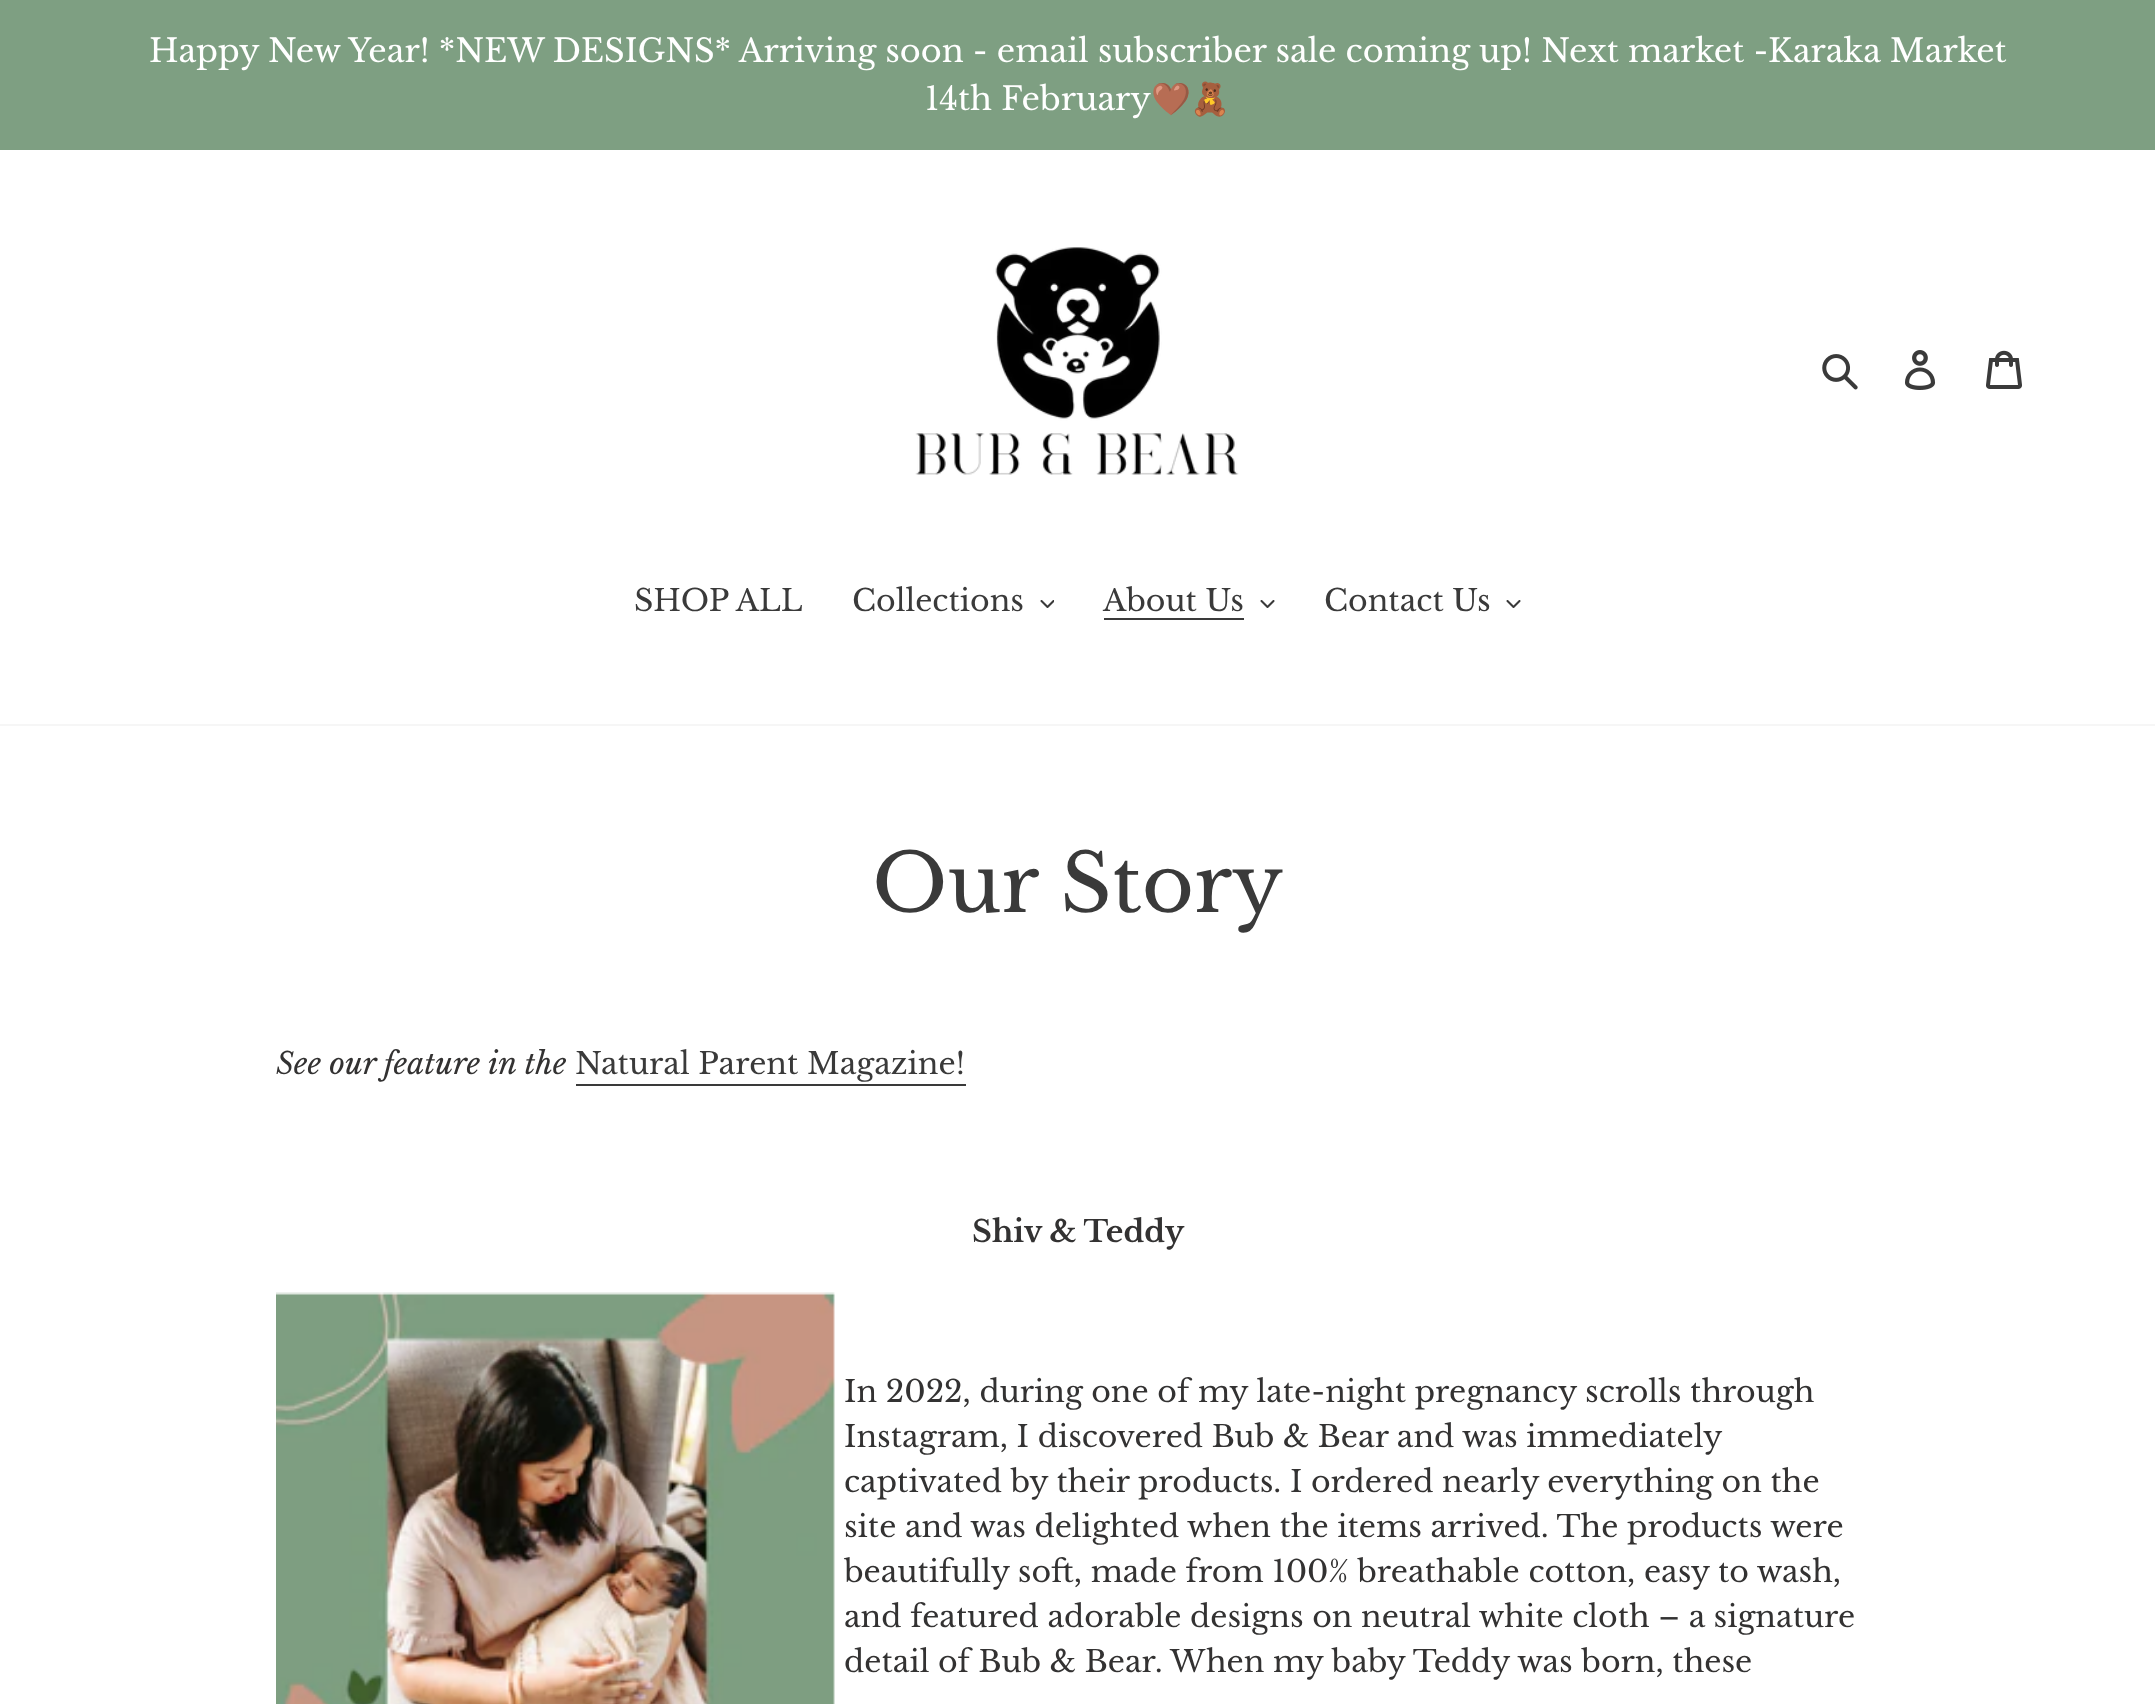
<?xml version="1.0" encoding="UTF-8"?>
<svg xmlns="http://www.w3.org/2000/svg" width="2155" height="1704">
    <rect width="100%" height="100%" fill="#FFFFFF"/>
    <rect x="0" y="0" width="2155" height="150" fill="#7E9F82"/>
    <text x="149" y="62" font-family="Libre Baskerville" font-size="32" fill="#FFFFFF">Happy New Year! *NEW DESIGNS* Arriving soon - email subscriber sale coming up! Next market -Karaka Market</text>
    <text x="925" y="110" font-family="Libre Baskerville" font-size="32" fill="#FFFFFF">14th February</text>
    <text x="1151" y="110" font-family="Noto Color Emoji" font-size="32" fill="#FFFFFF">🤎🧸</text>
    <image x="915" y="247" width="324" height="228" href="img_01.png"/>
    <image x="1822" y="354" width="36" height="36" href="img_02.png"/>
    <image x="1905" y="350" width="31" height="40" href="img_03.png"/>
    <image x="1986" y="350" width="36" height="39" href="img_04.png"/>
    <rect x="0" y="724" width="2155" height="2" fill="#F6F6F6"/>
    <text x="634" y="611" font-family="Libre Baskerville" font-size="30" fill="#3A3A3A">SHOP ALL</text>
    <text x="852" y="611" font-family="Libre Baskerville" font-size="30" fill="#3A3A3A">Collections</text>
    <image x="1040" y="600" width="14" height="8" href="img_05.png"/>
    <text x="1103" y="611" font-family="Libre Baskerville" font-size="30" fill="#3A3A3A">About Us</text>
    <rect x="1104" y="618" width="140" height="2" fill="#3A3A3A"/>
    <image x="1260" y="600" width="15" height="8" href="img_06.png"/>
    <text x="1324" y="611" font-family="Libre Baskerville" font-size="30" fill="#3A3A3A">Contact Us</text>
    <image x="1506" y="600" width="15" height="8" href="img_06.png"/>
    <text x="872" y="912" font-family="Libre Baskerville" font-size="80" fill="#3A3A3A">Our Story</text>
    <text x="276" y="1074" font-family="Libre Baskerville" font-size="30" font-style="italic" fill="#333232">See our feature in the</text>
    <text x="575" y="1074" font-family="Libre Baskerville" font-size="30" fill="#3A3A3A">Natural Parent Magazine!</text>
    <rect x="576" y="1084" width="390" height="2" fill="#3A3A3A"/>
    <text x="972" y="1242" font-family="Libre Baskerville" font-size="30" font-weight="700" fill="#333232">Shiv &amp; Teddy</text>
    <image x="276" y="1292" width="559" height="412" href="img_07.png"/>
    <text font-family="Libre Baskerville" font-size="30" fill="#333232">
        <tspan x="844" y="1402">In 2022, during one of my late-night pregnancy scrolls through</tspan>
        <tspan x="844" y="1447">Instagram, I discovered Bub &amp; Bear and was immediately</tspan>
        <tspan x="844" y="1492">captivated by their products. I ordered nearly everything on the</tspan>
        <tspan x="844" y="1537">site and was delighted when the items arrived. The products were</tspan>
        <tspan x="844" y="1582">beautifully soft, made from 100% breathable cotton, easy to wash,</tspan>
        <tspan x="844" y="1627">and featured adorable designs on neutral white cloth – a signature</tspan>
        <tspan x="844" y="1672">detail of Bub &amp; Bear. When my baby Teddy was born, these</tspan>
    </text>
</svg>
